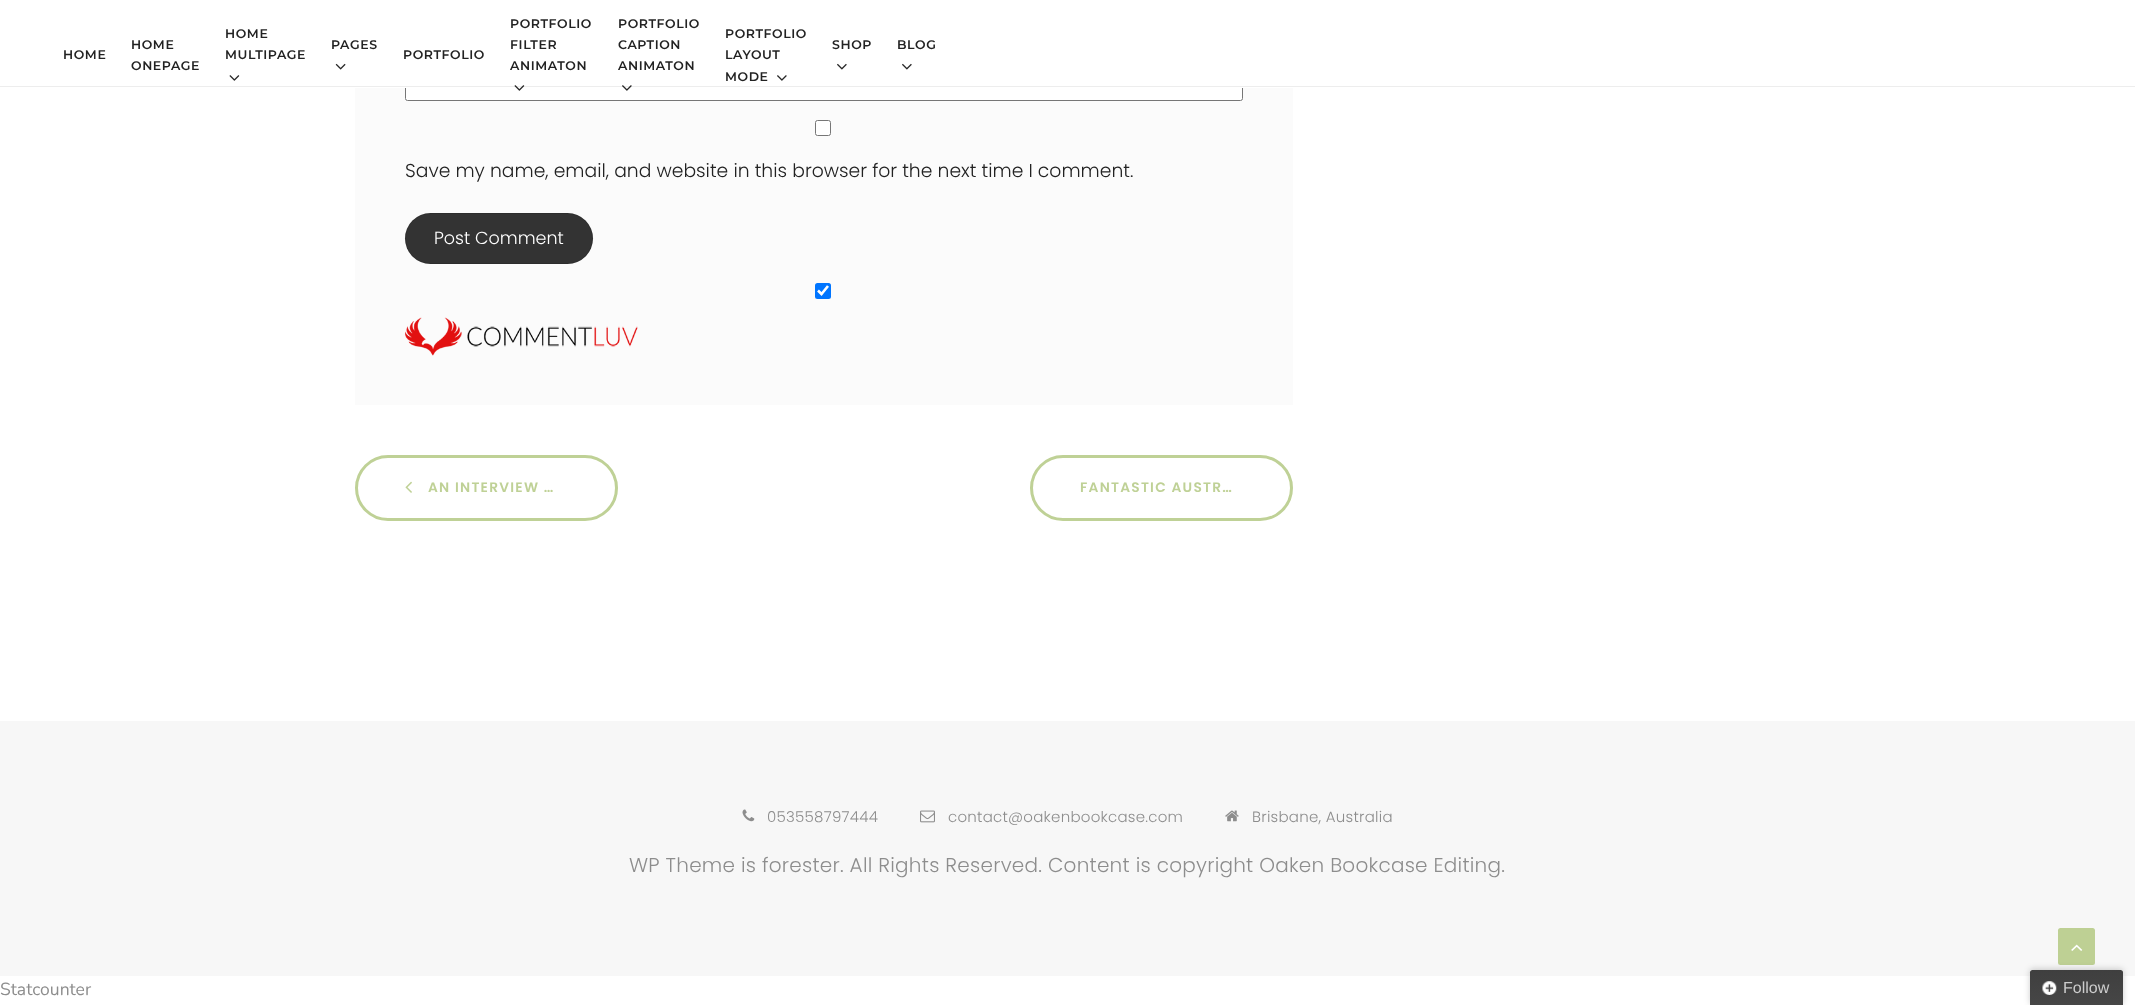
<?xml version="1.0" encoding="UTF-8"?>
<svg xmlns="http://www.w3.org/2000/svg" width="2135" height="1005">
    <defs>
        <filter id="blur1" x="-50%" y="-200%" width="200%" height="500%"><feGaussianBlur stdDeviation="3"/></filter>
        <linearGradient id="g1" gradientUnits="userSpaceOnUse" x1="2030" y1="970" x2="2030" y2="1005"><stop offset="0" stop-color="#3F3F3F"/><stop offset="1" stop-color="#464646"/></linearGradient>
    </defs>
    <rect width="100%" height="100%" fill="#FFFFFF"/>
    <rect x="355" y="88" width="938" height="317" fill="#FBFBFB"/>
    <rect x="405.5" y="46.5" width="837" height="54" rx="2" fill="#FFFFFF" stroke="#767676"/>
    <rect x="405" y="46" width="838" height="42" fill="#FFFFFF"/>
    <rect x="0" y="86" width="2135" height="1" fill="#EDEDED"/>
    <text font-family="Montserrat" font-size="12.5" font-weight="600" letter-spacing="0.6" fill="#222222">
        <tspan x="131" y="49">HOME</tspan>
        <tspan x="131" y="70">ONEPAGE</tspan>
    </text>
    <text font-family="Montserrat" font-size="12.5" font-weight="600" letter-spacing="0.6" fill="#222222">
        <tspan x="225" y="38">HOME</tspan>
        <tspan x="225" y="59">MULTIPAGE</tspan>
    </text>
    <image x="229" y="75" width="11" height="6" href="img_01.png"/>
    <text x="331" y="49" font-family="Montserrat" font-size="12.5" font-weight="600" letter-spacing="0.6" fill="#222222">PAGES</text>
    <image x="335" y="63" width="11" height="7" href="img_02.png"/>
    <text font-family="Montserrat" font-size="12.5" font-weight="600" letter-spacing="0.6" fill="#222222">
        <tspan x="510" y="28">PORTFOLIO</tspan>
        <tspan x="510" y="49">FILTER</tspan>
        <tspan x="510" y="70">ANIMATON</tspan>
    </text>
    <image x="514" y="85" width="11" height="6" href="img_03.png"/>
    <text font-family="Montserrat" font-size="12.5" font-weight="600" letter-spacing="0.6" fill="#222222">
        <tspan x="618" y="28">PORTFOLIO</tspan>
        <tspan x="618" y="49">CAPTION</tspan>
        <tspan x="618" y="70">ANIMATON</tspan>
    </text>
    <image x="622" y="85" width="10" height="6" href="img_04.png"/>
    <text font-family="Montserrat" font-size="12.5" font-weight="600" letter-spacing="0.6" fill="#222222">
        <tspan x="725" y="38">PORTFOLIO</tspan>
        <tspan x="725" y="59">LAYOUT</tspan>
        <tspan x="725" y="81">MODE</tspan>
    </text>
    <image x="777" y="75" width="10" height="6" href="img_05.png"/>
    <text x="832" y="49" font-family="Montserrat" font-size="12.5" font-weight="600" letter-spacing="0.6" fill="#222222">SHOP</text>
    <image x="837" y="63" width="10" height="7" href="img_06.png"/>
    <text x="897" y="49" font-family="Montserrat" font-size="12.5" font-weight="600" letter-spacing="0.6" fill="#222222">BLOG</text>
    <image x="902" y="63" width="10" height="7" href="img_06.png"/>
    <text x="63" y="59" font-family="Montserrat" font-size="12.5" font-weight="600" letter-spacing="0.6" fill="#222222">HOME</text>
    <text x="403" y="59" font-family="Montserrat" font-size="12.5" font-weight="600" letter-spacing="0.6" fill="#222222">PORTFOLIO</text>
    <rect x="815.5" y="120.5" width="15" height="15" rx="2" fill="#FFFFFF" stroke="#767676"/>
    <text x="405" y="177" font-family="Poppins" font-size="18.75" font-weight="300" fill="#222222">Save my name, email, and website in this browser for the next time I comment.</text>
    <rect x="405" y="213" width="188" height="51" rx="25.5" fill="#333333"/>
    <rect x="405.5" y="213.5" width="187" height="50" rx="25" fill="none" stroke="#000000" stroke-opacity="0.1"/>
    <text x="434" y="244" font-family="Poppins" font-size="17.5" font-weight="300" fill="#FFFFFF">Post Comment</text>
    <rect x="815" y="283" width="16" height="16" rx="2.5" fill="#0075FF"/>
    <path d="M 818 290.5 L 821.5 294 L 828 286" fill="none" stroke="#FFFFFF" stroke-width="2.6"/>
    <image x="405" y="317" width="233" height="39" href="img_07.png"/>
    <rect x="356.5" y="456.5" width="260" height="63" rx="31.5" fill="none" stroke="#BFD196" stroke-width="3"/>
    <image x="405" y="481" width="7" height="12" href="img_08.png"/>
    <text x="428" y="492" font-family="Poppins" font-size="13.75" font-weight="600" letter-spacing="1.25" fill="#BFD196">AN INTERVIEW …</text>
    <rect x="1031.5" y="456.5" width="260" height="63" rx="31.5" fill="none" stroke="#BFD196" stroke-width="3"/>
    <text x="1080" y="492" font-family="Poppins" font-size="13.75" font-weight="600" letter-spacing="1.25" fill="#BFD196">FANTASTIC AUSTR…</text>
    <rect x="0" y="721" width="2135" height="255" fill="#F7F7F7"/>
    <image x="742" y="809" width="13" height="13" href="img_09.png"/>
    <text x="767" y="822" font-family="Poppins" font-size="15" font-weight="300" letter-spacing="0.25" fill="#8D8D8D">053558797444</text>
    <image x="920" y="810" width="15" height="13" href="img_10.png"/>
    <text x="948" y="822" font-family="Poppins" font-size="15" font-weight="300" letter-spacing="0.25" fill="#8D8D8D">contact@oakenbookcase.com</text>
    <image x="1225" y="810" width="14" height="12" href="img_11.png"/>
    <text x="1252" y="822" font-family="Poppins" font-size="15" font-weight="300" letter-spacing="0.25" fill="#8D8D8D">Brisbane, Australia</text>
    <text x="629" y="872" font-family="Poppins" font-size="20" font-weight="300" letter-spacing="0.25" fill="#8D8D8D">WP Theme is forester. All Rights Reserved. Content is copyright Oaken Bookcase Editing.</text>
    <rect x="2058" y="928" width="37" height="37" rx="2.5" fill="#BED094"/>
    <image x="2071" y="944" width="12" height="7" href="img_12.png"/>
    <text x="0" y="995" font-family="Nunito" font-size="17.5" fill="#8D8D8D">Statcounter</text>
    <rect x="2030" y="969" width="93" height="35" rx="2.5" fill="#000000" fill-opacity="0.2" filter="url(#blur1)"/>
    <path d="M 2032.5 970 H 2120.5 C 2122 970 2123 971 2123 972.5 V 1005 H 2030 V 972.5 C 2030 971 2031 970 2032.5 970 Z" fill="url(#g1)"/>
    <image x="2042" y="981" width="15" height="14" href="img_13.png"/>
    <text x="2063" y="993" font-family="Liberation Sans" font-size="16" fill="#CCCCCC">Follow</text>
</svg>
